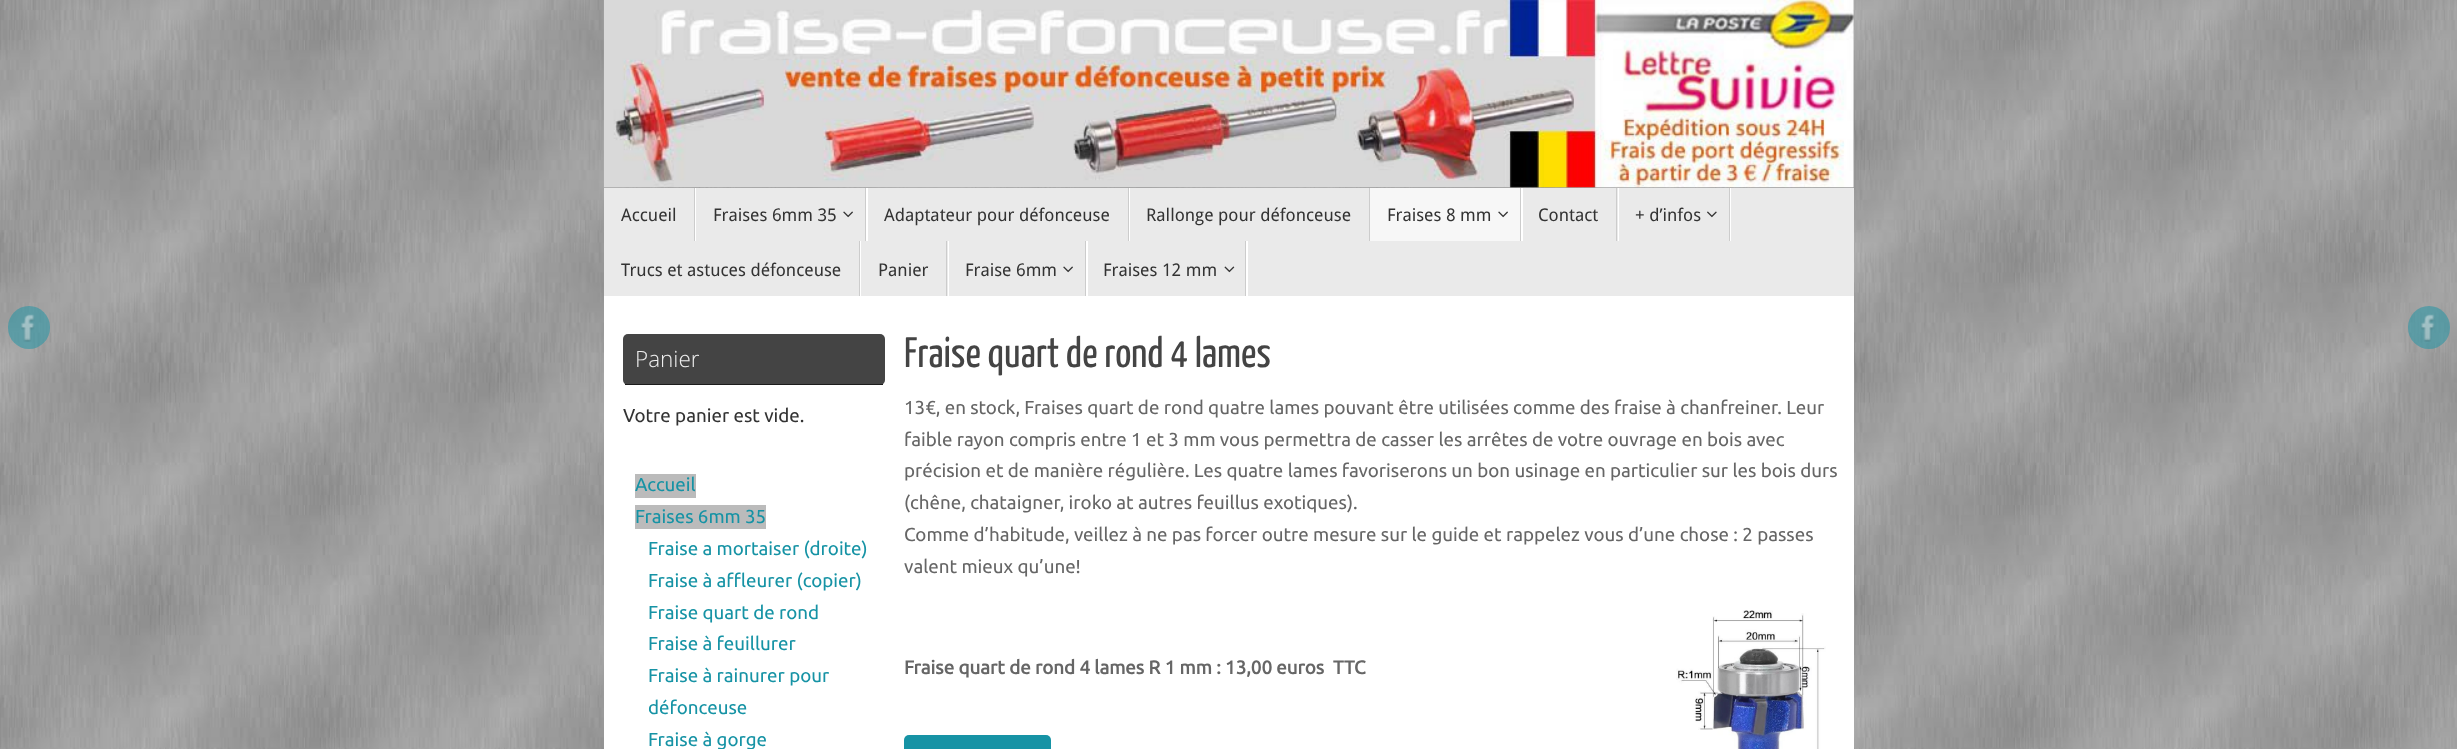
<?xml version="1.0" encoding="UTF-8"?>
<svg xmlns="http://www.w3.org/2000/svg" width="2457" height="749">
    <rect width="100%" height="100%" fill="#FFFFFF"/>
    <image x="0" y="0" width="2457" height="749" href="img_01.png"/>
    <image x="603" y="0" width="1251" height="188" href="img_02.png"/>
    <rect x="604" y="188" width="1250" height="108" fill="#EAEAEA"/>
    <rect x="695" y="188" width="1" height="53" fill="#FFFFFF"/>
    <rect x="694" y="188" width="1" height="53" fill="#CCCCCC"/>
    <text x="621" y="221" font-family="Droid Sans" font-size="17.5" fill="#333333">Accueil</text>
    <rect x="866" y="188" width="2" height="53" fill="#FFFFFF"/>
    <rect x="865" y="188" width="1" height="53" fill="#CCCCCC"/>
    <text x="713" y="221" font-family="Droid Sans" font-size="17.5" fill="#333333">Fraises 6mm 35</text>
    <image x="843" y="211" width="10" height="7" href="img_03.png"/>
    <rect x="1129" y="188" width="1" height="53" fill="#FFFFFF"/>
    <rect x="1128" y="188" width="1" height="53" fill="#CCCCCC"/>
    <text x="884" y="221" font-family="Droid Sans" font-size="17.5" fill="#333333">Adaptateur pour défonceuse</text>
    <rect x="1369" y="188" width="1" height="53" fill="#CCCCCC"/>
    <text x="1146" y="221" font-family="Droid Sans" font-size="17.5" fill="#333333">Rallonge pour défonceuse</text>
    <rect x="1370" y="188" width="150" height="53" fill="#F7F7F7"/>
    <rect x="1521" y="188" width="2" height="53" fill="#FFFFFF"/>
    <rect x="1520" y="188" width="1" height="53" fill="#CCCCCC"/>
    <text x="1387" y="221" font-family="Droid Sans" font-size="17.5" fill="#333333">Fraises 8 mm</text>
    <image x="1498" y="211" width="10" height="7" href="img_04.png"/>
    <rect x="1618" y="188" width="1" height="53" fill="#FFFFFF"/>
    <rect x="1616" y="188" width="1" height="53" fill="#CCCCCC"/>
    <text x="1538" y="221" font-family="Droid Sans" font-size="17.5" fill="#333333">Contact</text>
    <rect x="1730" y="188" width="1" height="53" fill="#FFFFFF"/>
    <rect x="1729" y="188" width="1" height="53" fill="#CCCCCC"/>
    <text x="1635" y="221" font-family="Droid Sans" font-size="17.5" fill="#333333">+ d’infos</text>
    <image x="1707" y="211" width="10" height="7" href="img_05.png"/>
    <path d="M 605 241 H 860 V 296 H 861 V 241 Z" fill="#FFFFFF"/>
    <rect x="859" y="241" width="1" height="55" fill="#CCCCCC"/>
    <text x="621" y="276" font-family="Droid Sans" font-size="17.5" fill="#333333">Trucs et astuces défonceuse</text>
    <path d="M 861 241 H 948 V 296 H 949 V 241 Z" fill="#FFFFFF"/>
    <rect x="946" y="241" width="1" height="55" fill="#CCCCCC"/>
    <text x="878" y="276" font-family="Droid Sans" font-size="17.5" fill="#333333">Panier</text>
    <path d="M 949 241 H 1086 V 296 H 1088 V 241 Z" fill="#FFFFFF"/>
    <rect x="1085" y="241" width="1" height="55" fill="#CCCCCC"/>
    <text x="965" y="276" font-family="Droid Sans" font-size="17.5" fill="#333333">Fraise 6mm</text>
    <image x="1063" y="266" width="10" height="7" href="img_03.png"/>
    <path d="M 1088 241 H 1246 V 296 H 1248 V 241 Z" fill="#FFFFFF"/>
    <rect x="1245" y="241" width="1" height="55" fill="#CCCCCC"/>
    <text x="1103" y="276" font-family="Droid Sans" font-size="17.5" fill="#333333">Fraises 12 mm</text>
    <image x="1224" y="266" width="11" height="7" href="img_06.png"/>
    <rect x="8" y="306" width="42" height="43" rx="21" fill="#1693A5" fill-opacity="0.5"/>
    <image x="21" y="314" width="14" height="28" href="img_07.png"/>
    <rect x="2408" y="306" width="42" height="43" rx="21" fill="#1693A5" fill-opacity="0.5"/>
    <image x="2421" y="314" width="14" height="28" href="img_08.png"/>
    <rect x="604" y="296" width="1250" height="453" fill="#FFFFFF"/>
    <rect x="623" y="334" width="262" height="51" rx="5" fill="#444444"/>
    <rect x="625" y="384" width="258" height="1" fill="#1C1C1C"/>
    <text x="635" y="367" font-family="Open Sans" font-size="22.5" font-weight="300" fill="#EEEEEE">Panier</text>
    <text x="623" y="422" font-family="Ubuntu" font-size="18.75" fill="#333333">Votre panier est vide.</text>
    <rect x="635" y="474" width="61" height="24" fill="#BBBBBB"/>
    <text x="635" y="491" font-family="Ubuntu" font-size="18.75" fill="#1693A5">Accueil</text>
    <rect x="635" y="505" width="131" height="24" fill="#BBBBBB"/>
    <text x="635" y="523" font-family="Ubuntu" font-size="18.75" fill="#1693A5">Fraises 6mm 35</text>
    <text font-family="Ubuntu" font-size="18.75" fill="#1693A5">
        <tspan x="648" y="555">Fraise a mortaiser (droite)</tspan>
        <tspan x="648" y="587">Fraise à affleurer (copier)</tspan>
        <tspan x="648" y="619">Fraise quart de rond</tspan>
        <tspan x="648" y="650">Fraise à feuillurer</tspan>
        <tspan x="648" y="682">Fraise à rainurer pour</tspan>
        <tspan x="648" y="714">défonceuse</tspan>
        <tspan x="648" y="746">Fraise à gorge</tspan>
    </text>
    <text x="904" y="367" font-family="Yanone Kaffeesatz" font-size="42.5" fill="#444444">Fraise quart de rond 4 lames</text>
    <text font-family="Ubuntu" font-size="18.75" fill="#666666">
        <tspan x="904" y="414">13€, en stock, Fraises quart de rond quatre lames pouvant être utilisées comme des fraise à chanfreiner. Leur</tspan>
        <tspan x="904" y="446">faible rayon compris entre 1 et 3 mm vous permettra de casser les arrêtes de votre ouvrage en bois avec</tspan>
        <tspan x="904" y="477">précision et de manière régulière. Les quatre lames favoriserons un bon usinage en particulier sur les bois durs</tspan>
        <tspan x="904" y="509">(chêne, chataigner, iroko at autres feuillus exotiques).</tspan>
        <tspan x="904" y="541">Comme d’habitude, veillez à ne pas forcer outre mesure sur le guide et rappelez vous d’une chose : 2 passes</tspan>
        <tspan x="904" y="573">valent mieux qu’une!</tspan>
    </text>
    <text x="904" y="674" font-family="Ubuntu" font-size="18.75" font-weight="700" fill="#666666" xml:space="preserve">Fraise quart de rond 4 lames R 1 mm : 13,00 euros  TTC</text>
    <image x="1676" y="610" width="150" height="139" href="img_09.png"/>
    <rect x="904" y="735" width="147" height="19" rx="5" fill="#1693A5"/>
</svg>
